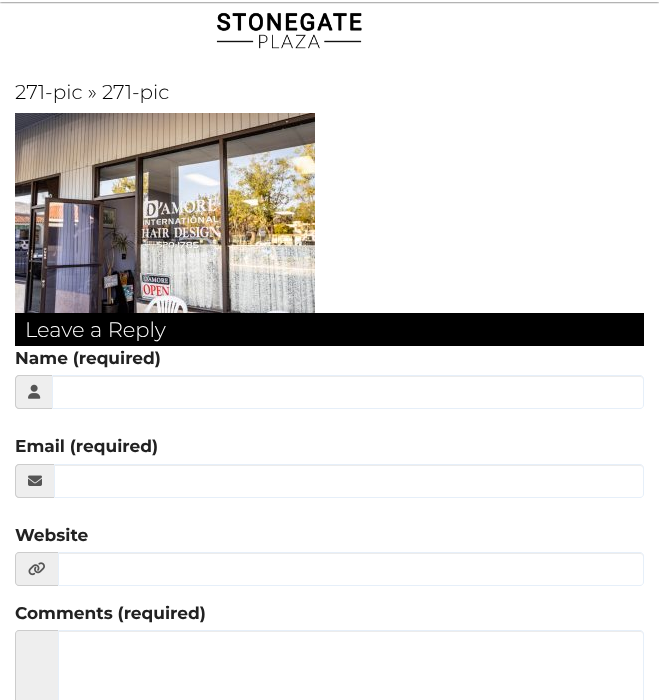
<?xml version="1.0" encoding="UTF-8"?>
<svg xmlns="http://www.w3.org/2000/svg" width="659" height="700">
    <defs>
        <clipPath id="clip1"><rect x="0" y="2" width="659" height="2"/></clipPath>
        <filter id="blur1" x="-50%" y="-200%" width="200%" height="500%"><feGaussianBlur stdDeviation="1"/></filter>
    </defs>
    <rect width="100%" height="100%" fill="#FFFFFF"/>
    <g clip-path="url(#clip1)">
        <rect x="0" y="0" width="659" height="2" fill="#212121" filter="url(#blur1)"/>
    </g>
    <image x="216" y="12" width="146" height="37" href="img_01.png"/>
    <text x="15" y="99" font-family="Montserrat" font-size="20" font-weight="300" fill="#000000">271-pic » 271-pic</text>
    <image x="15" y="113" width="300" height="200" href="img_02.png"/>
    <rect x="15" y="313" width="629" height="33" fill="#000000"/>
    <text x="25" y="337" font-family="Montserrat" font-size="21" font-weight="300" fill="#FFFFFF">Leave a Reply</text>
    <text x="15" y="364" font-family="Montserrat" font-size="17" font-weight="700" fill="#222222">Name (required)</text>
    <path d="M 19 375 H 52 V 409 H 19 C 17 409 15 407 15 405 V 379 C 15 377 17 375 19 375 Z" fill="#EEEEEE"/>
    <path d="M 19 375 H 52 V 409 H 19 C 17 409 15 407 15 405 V 379 C 15 377 17 375 19 375 Z M 19 376 H 52 V 408 H 19 C 17.5 408 16 406.5 16 405 V 379 C 16 377.5 17.5 376 19 376 Z" fill="#CCCCCC" fill-rule="evenodd"/>
    <image x="28" y="384" width="13" height="15" href="img_03.png"/>
    <path d="M 53 377 H 640 C 642 377 643 378 643 380 V 379 C 643 377 642 376 640 376 H 53 Z" fill="#ECECEC"/>
    <path d="M 52.5 375.5 H 640 C 642 375.5 643.5 377 643.5 379 V 405 C 643.5 407 642 408.5 640 408.5 H 52.5 Z" fill="none" stroke="#E6EFF9"/>
    <text x="15" y="452" font-family="Montserrat" font-size="17" font-weight="700" fill="#222222">Email (required)</text>
    <path d="M 19 464 H 54 V 498 H 19 C 17 498 15 496 15 494 V 468 C 15 466 17 464 19 464 Z" fill="#EEEEEE"/>
    <path d="M 19 464 H 54 V 498 H 19 C 17 498 15 496 15 494 V 468 C 15 466 17 464 19 464 Z M 19 465 H 54 V 497 H 19 C 17.5 497 16 495.5 16 494 V 468 C 16 466.5 17.5 465 19 465 Z" fill="#CCCCCC" fill-rule="evenodd"/>
    <image x="28" y="475" width="14" height="11" href="img_04.png"/>
    <path d="M 55 466 H 640 C 642 466 643 467 643 469 V 468 C 643 466 642 465 640 465 H 55 Z" fill="#ECECEC"/>
    <path d="M 54.5 464.5 H 640 C 642 464.5 643.5 466 643.5 468 V 494 C 643.5 496 642 497.5 640 497.5 H 54.5 Z" fill="none" stroke="#E6EFF9"/>
    <text x="15" y="541" font-family="Montserrat" font-size="17" font-weight="700" fill="#222222">Website</text>
    <path d="M 19 552 H 58 V 586 H 19 C 17 586 15 584 15 582 V 556 C 15 554 17 552 19 552 Z" fill="#EEEEEE"/>
    <path d="M 19 552 H 58 V 586 H 19 C 17 586 15 584 15 582 V 556 C 15 554 17 552 19 552 Z M 19 553 H 58 V 585 H 19 C 17 585 16 584 16 582 V 556 C 16 554 17 553 19 553 Z" fill="#CCCCCC" fill-rule="evenodd"/>
    <image x="28" y="562" width="17" height="14" href="img_05.png"/>
    <path d="M 59 554 H 640 C 642 554 643 555 643 557 V 556 C 643 554 642 553 640 553 H 59 Z" fill="#ECECEC"/>
    <path d="M 58.5 552.5 H 640 C 642 552.5 643.5 554 643.5 556 V 582 C 643.5 584 642 585.5 640 585.5 H 58.5 Z" fill="none" stroke="#E6EFF9"/>
    <text x="15" y="619" font-family="Montserrat" font-size="17" font-weight="700" fill="#222222">Comments (required)</text>
    <path d="M 19 630 H 58 V 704 H 19 C 17 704 15 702 15 700 V 634 C 15 632 17 630 19 630 Z" fill="#EEEEEE"/>
    <path d="M 19 630 H 58 V 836 H 19 C 17 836 15 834 15 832 V 634 C 15 632 17 630 19 630 Z M 19 631 H 58 V 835 H 19 C 17 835 16 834 16 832 V 634 C 16 632 17 631 19 631 Z" fill="#CCCCCC" fill-rule="evenodd"/>
    <path d="M 59 632 H 640 C 642 632 643 633 643 635 V 634 C 643 632 642 631 640 631 H 59 Z" fill="#ECECEC"/>
    <path d="M 58.5 630.5 H 640 C 642 630.5 643.5 632 643.5 634 V 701 C 643.5 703 642 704.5 640 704.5 H 58.5 Z" fill="none" stroke="#E6EFF9"/>
</svg>
